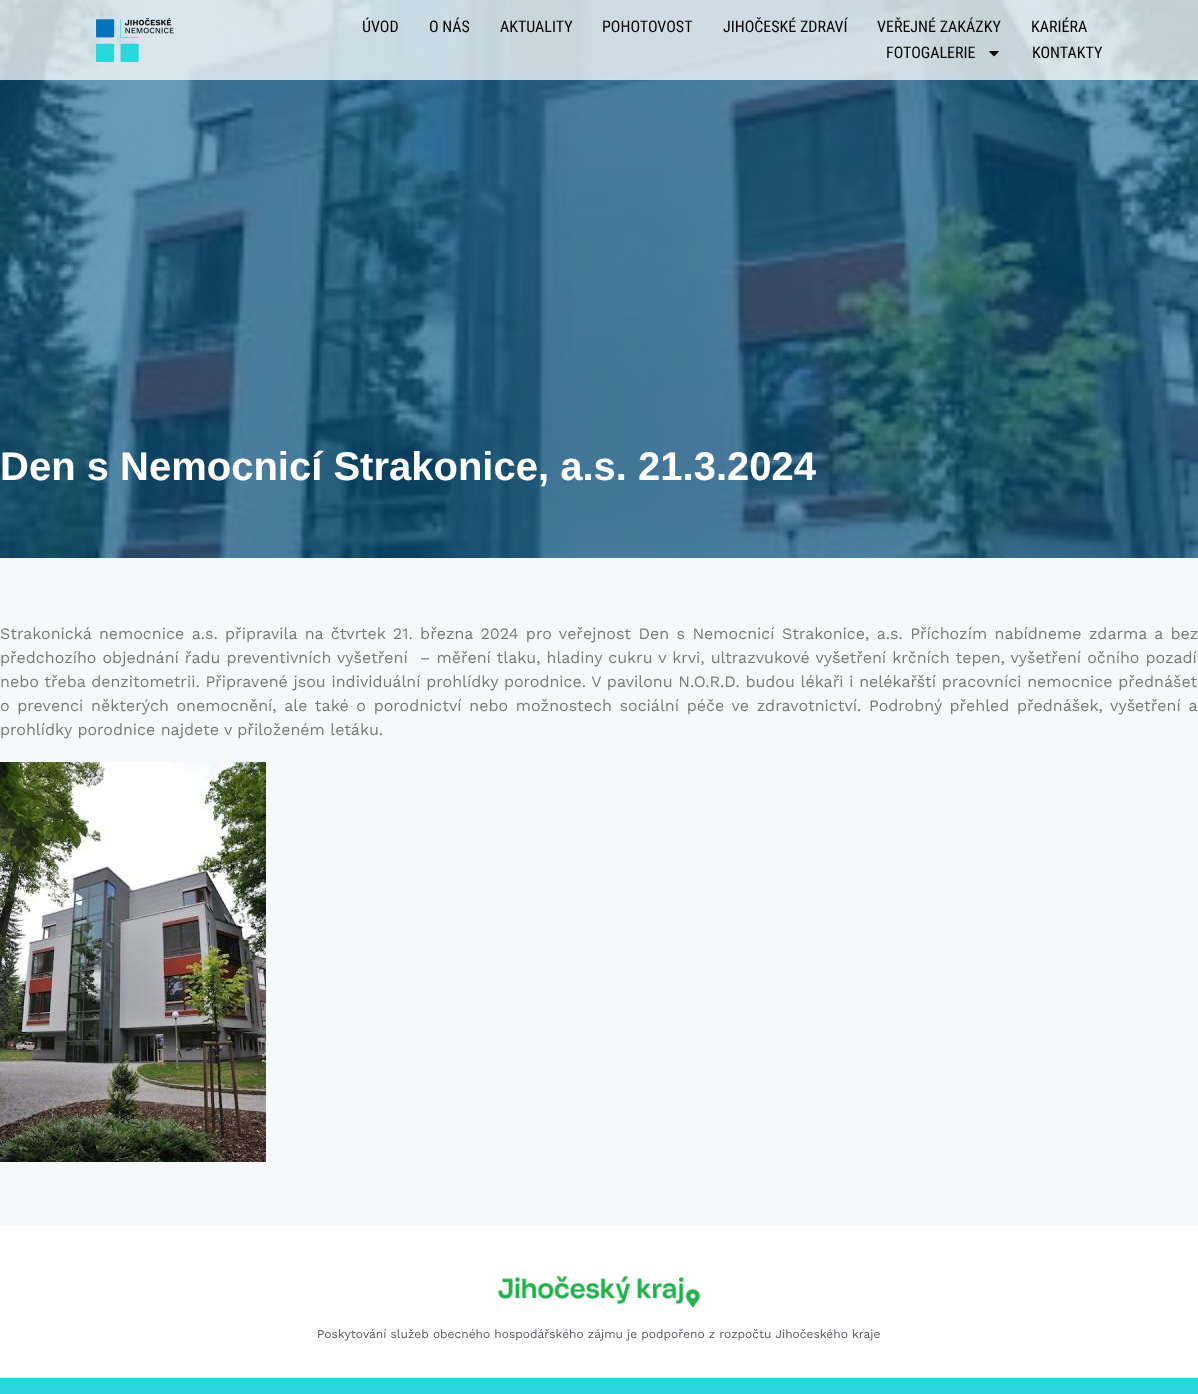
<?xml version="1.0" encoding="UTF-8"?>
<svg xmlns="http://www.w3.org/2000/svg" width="1198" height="1394">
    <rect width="100%" height="100%" fill="#F6F9F9"/>
    <image x="0" y="0" width="1198" height="558" href="img_03.png"/>
    <rect x="0" y="0" width="1198" height="80" fill="#FFFFFF" fill-opacity="0.75"/>
    <image x="96" y="18" width="78" height="44" href="img_01.png"/>
    <text x="362" y="32" font-family="Roboto Condensed" font-size="16" fill="#000000">ÚVOD</text>
    <text x="429" y="32" font-family="Roboto Condensed" font-size="16" fill="#000000">O NÁS</text>
    <text x="500" y="32" font-family="Roboto Condensed" font-size="16" fill="#000000">AKTUALITY</text>
    <text x="602" y="32" font-family="Roboto Condensed" font-size="16" fill="#000000">POHOTOVOST</text>
    <text x="723" y="32" font-family="Roboto Condensed" font-size="16" fill="#000000">JIHOČESKÉ ZDRAVÍ</text>
    <text x="877" y="32" font-family="Roboto Condensed" font-size="16" fill="#000000">VEŘEJNÉ ZAKÁZKY</text>
    <text x="1031" y="32" font-family="Roboto Condensed" font-size="16" fill="#000000">KARIÉRA</text>
    <text x="886" y="58" font-family="Roboto Condensed" font-size="16" fill="#000000">FOTOGALERIE</text>
    <image x="989" y="51" width="10" height="6" href="img_02.png"/>
    <text x="1032" y="58" font-family="Roboto Condensed" font-size="16" fill="#000000">KONTAKTY</text>
    <text x="0" y="480" font-family="Liberation Sans" font-size="40" font-weight="700" fill="#FFFFFF">Den s Nemocnicí Strakonice, a.s. 21.3.2024</text>
    <text font-family="Work Sans" font-size="16" fill="#7A7A7A" xml:space="preserve"><tspan x="0" y="639" word-spacing="2">Strakonická nemocnice a.s. připravila na čtvrtek 21. března 2024 pro veřejnost Den s Nemocnicí Strakonice, a.s. Příchozím nabídneme zdarma a bez</tspan><tspan x="0" y="663" word-spacing="0.6">předchozího objednání řadu preventivních vyšetření  – měření tlaku, hladiny cukru v krvi, ultrazvukové vyšetření krčních tepen, vyšetření očního pozadí</tspan><tspan x="0" y="687" word-spacing="0.3">nebo třeba denzitometrii. Připravené jsou individuální prohlídky porodnice. V pavilonu N.O.R.D. budou lékaři i nelékařští pracovníci nemocnice přednášet</tspan><tspan x="0" y="711" word-spacing="2.25">o prevenci některých onemocnění, ale také o porodnictví nebo možnostech sociální péče ve zdravotnictví. Podrobný přehled přednášek, vyšetření a</tspan><tspan x="0" y="735">prohlídky porodnice najdete v přiloženém letáku.</tspan></text>
    <image x="0" y="762" width="266" height="400" href="img_04.png"/>
    <rect x="0" y="1226" width="1198" height="152" fill="#FFFFFF"/>
    <image x="497" y="1275" width="204" height="34" href="img_05.png"/>
    <text x="317" y="1338" font-family="Work Sans" font-size="12" fill="#54595F">Poskytování služeb obecného hospodářského zájmu je podpořeno z rozpočtu Jihočeského kraje</text>
    <rect x="0" y="1378" width="1198" height="16" fill="#29D8DB"/>
</svg>
